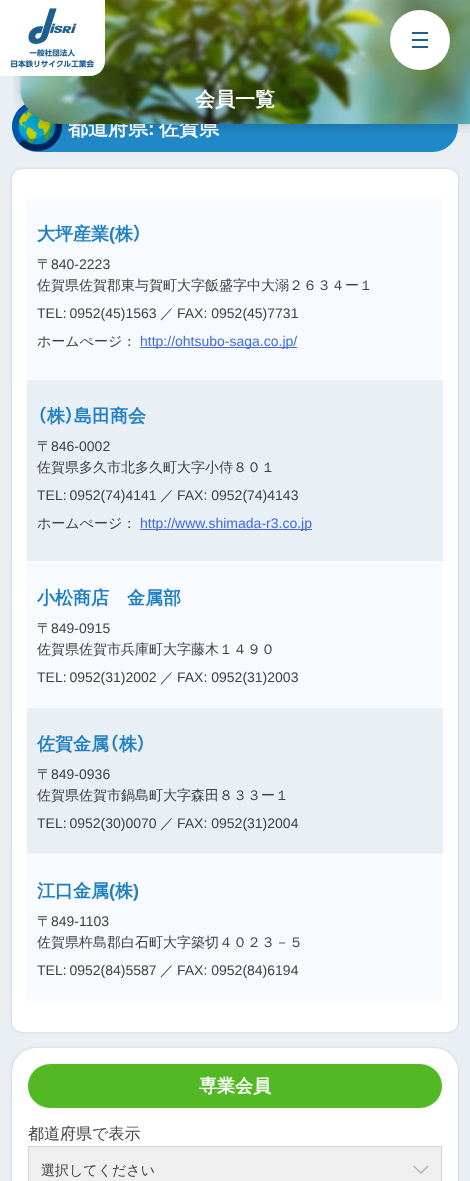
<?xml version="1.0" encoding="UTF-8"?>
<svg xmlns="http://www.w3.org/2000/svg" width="470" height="1181">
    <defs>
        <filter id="blur1" x="-50%" y="-200%" width="200%" height="500%"><feGaussianBlur stdDeviation="1.5"/></filter>
    </defs>
    <rect width="100%" height="100%" fill="#E9EFF4"/>
    <rect x="12" y="101" width="446" height="51" rx="25.5" fill="#2188C7"/>
    <image x="12" y="104" width="50" height="47" href="img_03.png"/>
    <text x="68" y="135" font-family="WenQuanYi Zen Hei" font-size="20" font-weight="700" fill="#FFFFFF">都道府県</text>
    <text x="148" y="135" font-family="Liberation Sans" font-size="20" font-weight="700" fill="#FFFFFF">:</text>
    <text x="159" y="135" font-family="WenQuanYi Zen Hei" font-size="20" font-weight="700" fill="#FFFFFF">佐賀県</text>
    <image x="13" y="0" width="457" height="133" href="img_02.png"/>
    <path d="M 0 0 H 105 V 61 C 105 69.5 98.5 76 90 76 H 0 Z" fill="#FFFFFF"/>
    <image x="11" y="8" width="83" height="60" href="img_01.png"/>
    <circle cx="420" cy="40" r="30" fill="#FFFFFF"/>
    <rect x="412" y="32" width="16" height="2" fill="#1D5F8F"/>
    <rect x="412" y="39" width="16" height="2" fill="#1D5F8F"/>
    <rect x="412" y="46" width="16" height="2" fill="#1D5F8F"/>
    <text x="195" y="106" font-family="WenQuanYi Zen Hei" font-size="20" font-weight="700" fill="#FFFFFF">会員一覧</text>
    <rect x="12" y="169" width="446" height="863" rx="10" fill="#000000" fill-opacity="0.16" filter="url(#blur1)"/>
    <rect x="12" y="169" width="446" height="863" rx="10" fill="#FFFFFF"/>
    <rect x="27" y="199" width="416" height="180" fill="#F7FBFF"/>
    <text x="37" y="240" font-family="WenQuanYi Zen Hei" font-size="18" font-weight="700" fill="#217FC4">大坪産業</text>
    <text x="109" y="240" font-family="Liberation Sans" font-size="18" font-weight="700" fill="#217FC4">(</text>
    <text x="115" y="240" font-family="WenQuanYi Zen Hei" font-size="18" font-weight="700" fill="#217FC4">株</text>
    <text x="133" y="240" font-family="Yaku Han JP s" font-size="18" font-weight="700" fill="#217FC4">）</text>
    <text x="37" y="269" font-family="WenQuanYi Zen Hei" font-size="14" font-weight="500" fill="#404040">〒</text>
    <text x="51" y="269" font-family="Liberation Sans" font-size="14" fill="#404040">840-2223</text>
    <text x="37" y="290" font-family="WenQuanYi Zen Hei" font-size="14" font-weight="500" fill="#404040">佐賀県佐賀郡東与賀町大字飯盛字中大溺２６３４ー１</text>
    <text x="37" y="318" word-spacing="-1" font-family="Liberation Sans" font-size="14" fill="#404040">TEL: 0952(45)1563</text>
    <text x="160" y="318" font-family="WenQuanYi Zen Hei" font-size="14" font-weight="500" fill="#404040">／</text>
    <text x="177" y="318" font-family="Liberation Sans" font-size="14" fill="#404040">FAX: 0952(45)7731</text>
    <text x="37" y="346" font-family="WenQuanYi Zen Hei" font-size="14" font-weight="500" fill="#404040">ホームぺージ：</text>
    <rect x="140" y="347" width="157" height="1" fill="#4169E1"/>
    <text x="140" y="346" font-family="Liberation Sans" font-size="14" fill="#4169E1">http://ohtsubo-saga.co.jp/</text>
    <rect x="27" y="380" width="416" height="181" fill="#E9F0F5"/>
    <text x="37" y="422" font-family="Yaku Han JP s" font-size="18" font-weight="700" fill="#217FC4">（</text>
    <text x="47" y="422" font-family="WenQuanYi Zen Hei" font-size="18" font-weight="700" fill="#217FC4">株</text>
    <text x="65" y="422" font-family="Yaku Han JP s" font-size="18" font-weight="700" fill="#217FC4">）</text>
    <text x="74" y="422" font-family="WenQuanYi Zen Hei" font-size="18" font-weight="700" fill="#217FC4">島田商会</text>
    <text x="37" y="451" font-family="WenQuanYi Zen Hei" font-size="14" font-weight="500" fill="#404040">〒</text>
    <text x="51" y="451" font-family="Liberation Sans" font-size="14" fill="#404040">846-0002</text>
    <text x="37" y="472" font-family="WenQuanYi Zen Hei" font-size="14" font-weight="500" fill="#404040">佐賀県多久市北多久町大字小侍８０１</text>
    <text x="37" y="500" word-spacing="-1" font-family="Liberation Sans" font-size="14" fill="#404040">TEL: 0952(74)4141</text>
    <text x="160" y="500" font-family="WenQuanYi Zen Hei" font-size="14" font-weight="500" fill="#404040">／</text>
    <text x="177" y="500" font-family="Liberation Sans" font-size="14" fill="#404040">FAX: 0952(74)4143</text>
    <text x="37" y="528" font-family="WenQuanYi Zen Hei" font-size="14" font-weight="500" fill="#404040">ホームぺージ：</text>
    <rect x="140" y="529" width="172" height="1" fill="#4169E1"/>
    <text x="140" y="528" font-family="Liberation Sans" font-size="14" fill="#4169E1">http://www.shimada-r3.co.jp</text>
    <rect x="27" y="562" width="416" height="145" fill="#F7FBFF"/>
    <text x="37" y="604" font-family="WenQuanYi Zen Hei" font-size="18" font-weight="700" fill="#217FC4">小松商店　金属部</text>
    <text x="37" y="633" font-family="WenQuanYi Zen Hei" font-size="14" font-weight="500" fill="#404040">〒</text>
    <text x="51" y="633" font-family="Liberation Sans" font-size="14" fill="#404040">849-0915</text>
    <text x="37" y="654" font-family="WenQuanYi Zen Hei" font-size="14" font-weight="500" fill="#404040">佐賀県佐賀市兵庫町大字藤木１４９０</text>
    <text x="37" y="682" word-spacing="-1" font-family="Liberation Sans" font-size="14" fill="#404040">TEL: 0952(31)2002</text>
    <text x="160" y="682" font-family="WenQuanYi Zen Hei" font-size="14" font-weight="500" fill="#404040">／</text>
    <text x="177" y="682" font-family="Liberation Sans" font-size="14" fill="#404040">FAX: 0952(31)2003</text>
    <rect x="27" y="708" width="416" height="146" fill="#E9F0F5"/>
    <text x="37" y="750" font-family="WenQuanYi Zen Hei" font-size="18" font-weight="700" fill="#217FC4">佐賀金属</text>
    <text x="109" y="750" font-family="Yaku Han JP s" font-size="18" font-weight="700" fill="#217FC4">（</text>
    <text x="119" y="750" font-family="WenQuanYi Zen Hei" font-size="18" font-weight="700" fill="#217FC4">株</text>
    <text x="137" y="750" font-family="Yaku Han JP s" font-size="18" font-weight="700" fill="#217FC4">）</text>
    <text x="37" y="779" font-family="WenQuanYi Zen Hei" font-size="14" font-weight="500" fill="#404040">〒</text>
    <text x="51" y="779" font-family="Liberation Sans" font-size="14" fill="#404040">849-0936</text>
    <text x="37" y="800" font-family="WenQuanYi Zen Hei" font-size="14" font-weight="500" fill="#404040">佐賀県佐賀市鍋島町大字森田８３３ー１</text>
    <text x="37" y="828" word-spacing="-1" font-family="Liberation Sans" font-size="14" fill="#404040">TEL: 0952(30)0070</text>
    <text x="160" y="828" font-family="WenQuanYi Zen Hei" font-size="14" font-weight="500" fill="#404040">／</text>
    <text x="177" y="828" font-family="Liberation Sans" font-size="14" fill="#404040">FAX: 0952(31)2004</text>
    <rect x="27" y="855" width="416" height="146" fill="#F7FBFF"/>
    <text x="37" y="897" font-family="WenQuanYi Zen Hei" font-size="18" font-weight="700" fill="#217FC4">江口金属</text>
    <text x="109" y="897" font-family="Liberation Sans" font-size="18" font-weight="700" fill="#217FC4">(</text>
    <text x="115" y="897" font-family="WenQuanYi Zen Hei" font-size="18" font-weight="700" fill="#217FC4">株</text>
    <text x="133" y="897" font-family="Liberation Sans" font-size="18" font-weight="700" fill="#217FC4">)</text>
    <text x="37" y="926" font-family="WenQuanYi Zen Hei" font-size="14" font-weight="500" fill="#404040">〒</text>
    <text x="51" y="926" font-family="Liberation Sans" font-size="14" fill="#404040">849-1103</text>
    <text x="37" y="947" font-family="WenQuanYi Zen Hei" font-size="14" font-weight="500" fill="#404040">佐賀県杵島郡白石町大字築切４０２３－５</text>
    <text x="37" y="975" word-spacing="-1" font-family="Liberation Sans" font-size="14" fill="#404040">TEL: 0952(84)5587</text>
    <text x="160" y="975" font-family="WenQuanYi Zen Hei" font-size="14" font-weight="500" fill="#404040">／</text>
    <text x="177" y="975" font-family="Liberation Sans" font-size="14" fill="#404040">FAX: 0952(84)6194</text>
    <rect x="12" y="1048" width="446" height="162" rx="24" fill="#000000" fill-opacity="0.16" filter="url(#blur1)"/>
    <rect x="12" y="1048" width="446" height="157" rx="24" fill="#FFFFFF"/>
    <rect x="28" y="1064" width="414" height="44" rx="22" fill="#52B925"/>
    <text x="199" y="1092" font-family="WenQuanYi Zen Hei" font-size="18" font-weight="700" fill="#FFFFFF">専業会員</text>
    <text x="28" y="1139" font-family="WenQuanYi Zen Hei" font-size="16" font-weight="500" fill="#404040">都道府県で表示</text>
    <rect x="29" y="1147" width="412" height="34" fill="#EFEFEF"/>
    <path d="M 428 1166 L 421 1173 L 413.5 1166" fill="none" stroke="#B5B5B5" stroke-width="1.5"/>
    <rect x="28.5" y="1146.5" width="413" height="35" fill="none" stroke="#CDD6DD"/>
    <text x="41" y="1175" font-family="WenQuanYi Zen Hei" font-size="14" font-weight="500" fill="#404040">選択してください</text>
</svg>
